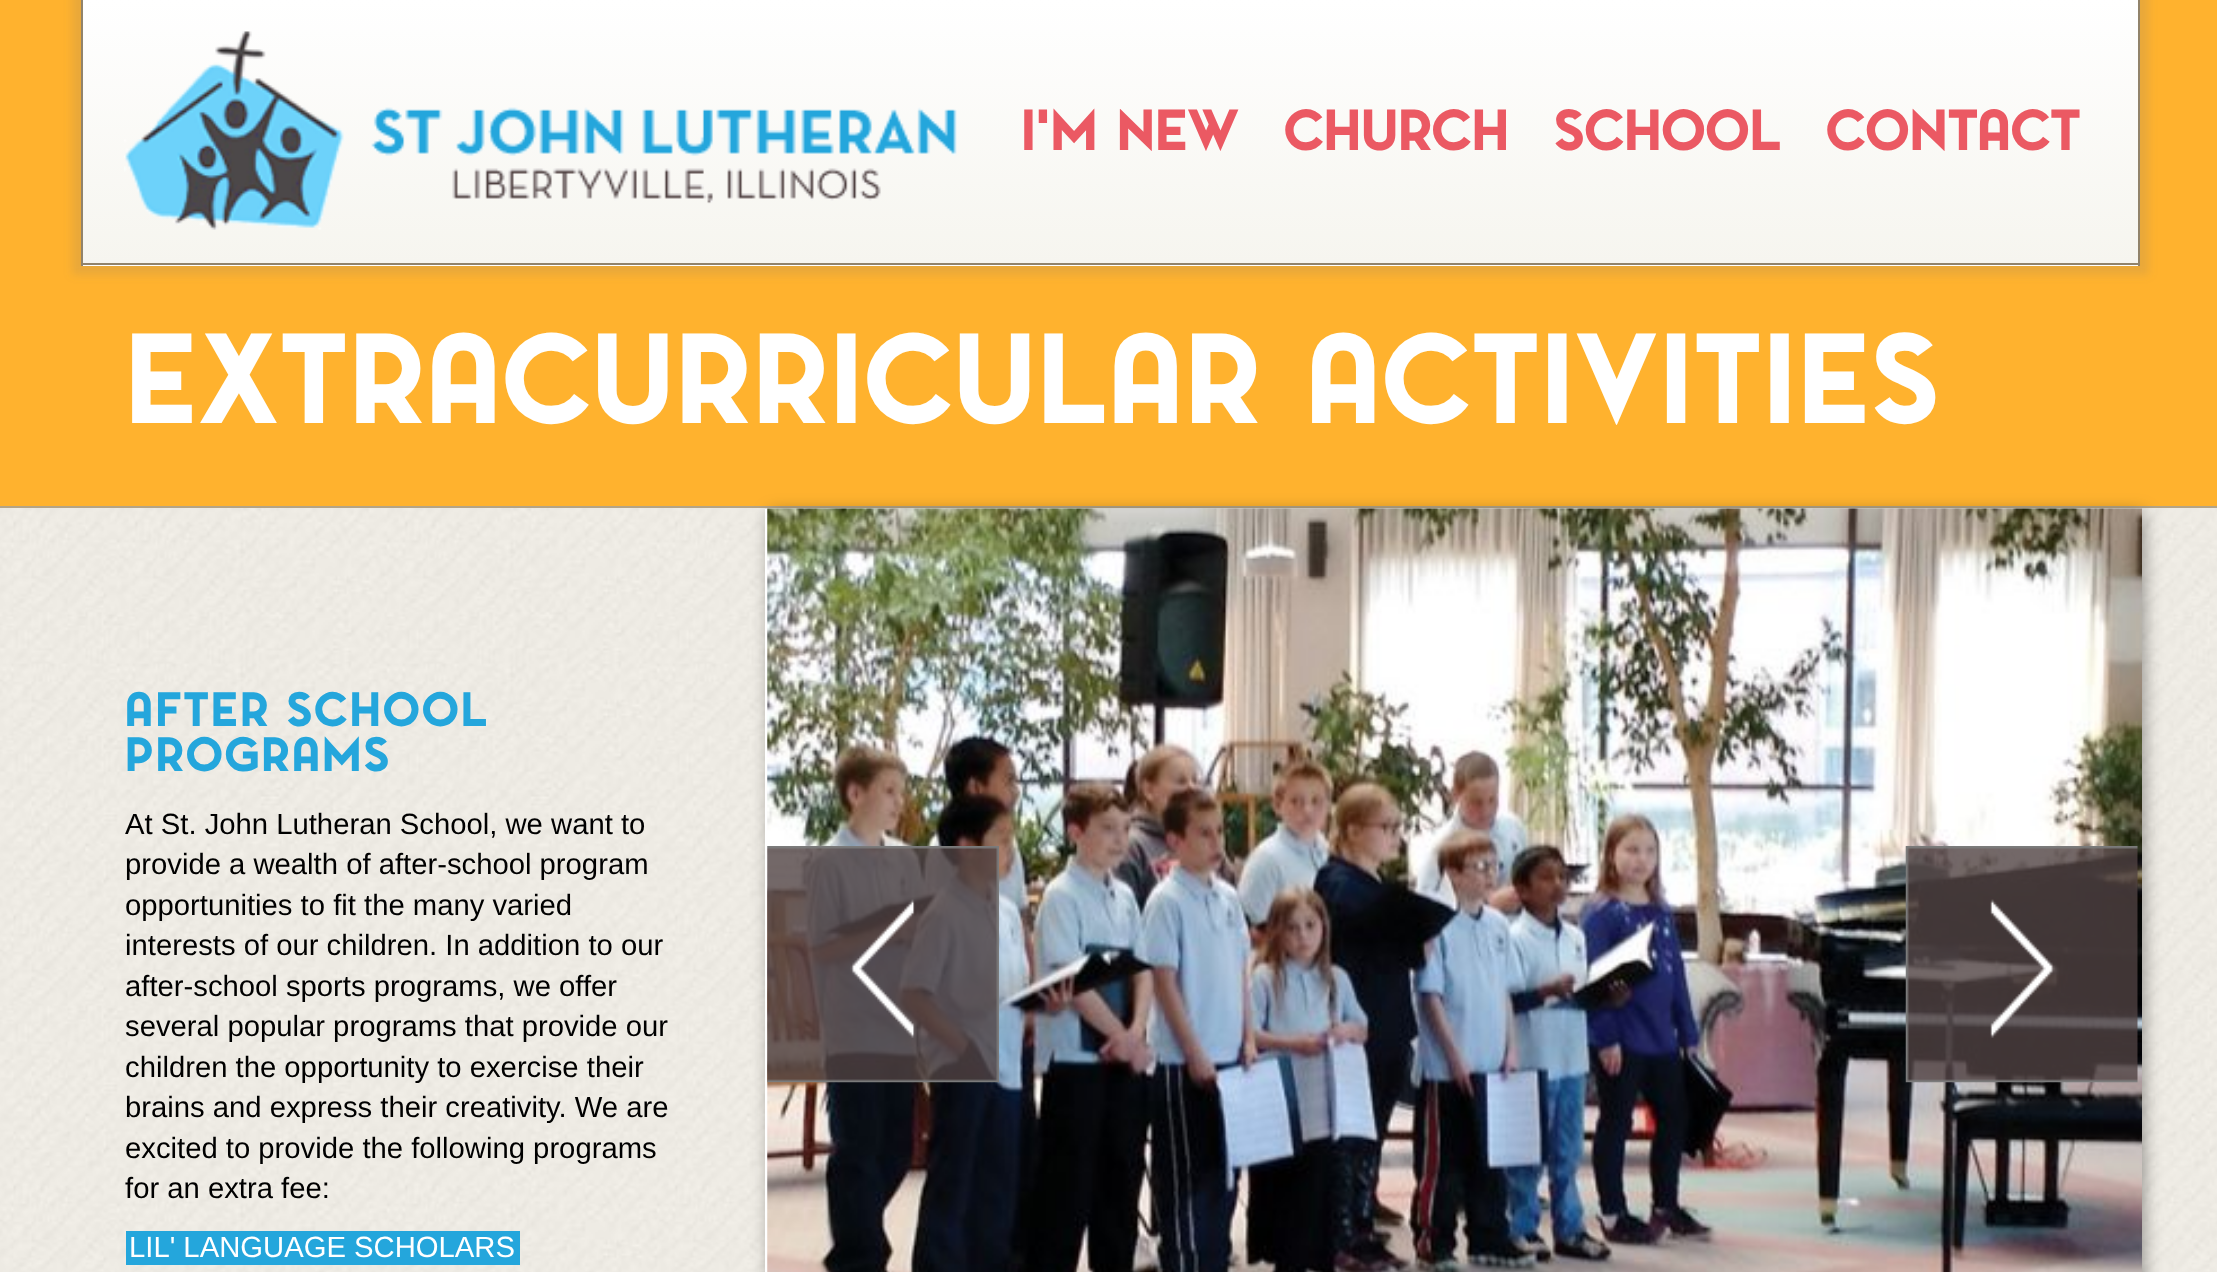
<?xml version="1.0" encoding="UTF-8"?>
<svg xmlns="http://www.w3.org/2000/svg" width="2217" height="1272">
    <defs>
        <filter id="blur1" x="-50%" y="-200%" width="200%" height="500%"><feGaussianBlur stdDeviation="4.5"/></filter>
        <linearGradient id="g1" gradientUnits="userSpaceOnUse" x1="1110" y1="0" x2="1110" y2="263"><stop offset="0" stop-color="#FFFFFF"/><stop offset="1" stop-color="#F6F5EF"/></linearGradient>
        <filter id="blur2" x="-50%" y="-200%" width="200%" height="500%"><feGaussianBlur stdDeviation="9"/></filter>
    </defs>
    <rect width="100%" height="100%" fill="#FFFFFF"/>
    <image x="0" y="508" width="2217" height="764" href="img_01.png"/>
    <rect x="0" y="0" width="2217" height="506" fill="#FFB22E"/>
    <rect x="72" y="-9" width="2077" height="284" fill="#90836B" fill-opacity="0.2" filter="url(#blur1)"/>
    <rect x="83" y="265" width="2055" height="1" fill="#FFFFFF"/>
    <rect x="83" y="0" width="2055" height="263" fill="url(#g1)"/>
    <rect x="2138" y="0" width="2" height="266" fill="#91836B"/>
    <rect x="81" y="263" width="2059" height="2" fill="#91836B"/>
    <rect x="81" y="0" width="2" height="266" fill="#91836B"/>
    <image x="124" y="31" width="833" height="199" href="img_02.png"/>
    <text x="1021" y="150" font-family="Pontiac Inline" font-size="54" font-weight="600" fill="#EB5963">I'm New</text>
    <text x="1284" y="150" font-family="Pontiac Inline" font-size="54" font-weight="600" fill="#EB5963">Church</text>
    <text x="1554" y="150" font-family="Pontiac Inline" font-size="54" font-weight="600" fill="#EB5963">School</text>
    <text x="1826" y="150" font-family="Pontiac Inline" font-size="54" font-weight="600" fill="#EB5963">Contact</text>
    <text x="125" y="423" font-family="Pontiac Inline" font-size="119.25" font-weight="600" letter-spacing="2.25" fill="#FFFFFF">EXTRACURRICULAR ACTIVITIES</text>
    <rect x="0" y="506" width="2217" height="2" fill="#B4A486"/>
    <text font-family="Pontiac Inline" font-size="45" font-weight="600" letter-spacing="2.25" fill="#24A6DC">
        <tspan x="125" y="726" word-spacing="-2">AFTER SCHOOL</tspan>
        <tspan x="125" y="771">PROGRAMS</tspan>
    </text>
    <text font-family="Liberation Sans" font-size="29.25" fill="#000000">
        <tspan x="125" y="834">At St. John Lutheran School, we want to</tspan>
        <tspan x="125" y="874">provide a wealth of after-school program</tspan>
        <tspan x="125" y="915">opportunities to fit the many varied</tspan>
        <tspan x="125" y="955">interests of our children. In addition to our</tspan>
        <tspan x="125" y="996">after-school sports programs, we offer</tspan>
        <tspan x="125" y="1036">several popular programs that provide our</tspan>
        <tspan x="125" y="1077">children the opportunity to exercise their</tspan>
        <tspan x="125" y="1117">brains and express their creativity. We are</tspan>
        <tspan x="125" y="1158">excited to provide the following programs</tspan>
        <tspan x="125" y="1198">for an extra fee:</tspan>
    </text>
    <rect x="126" y="1231" width="394" height="34" fill="#24A6DC"/>
    <text x="129" y="1257" font-family="Liberation Sans" font-size="29.25" fill="#FFFFFF">LIL' LANGUAGE SCHOLARS</text>
    <rect x="770" y="513" width="1374" height="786" fill="#000000" fill-opacity="0.4" filter="url(#blur2)"/>
    <rect x="765" y="509" width="3" height="763" fill="#FFFFFF"/>
    <image x="767" y="508" width="1375" height="764" href="img_03.png"/>
    <image x="767" y="846" width="232" height="237" href="img_04.png"/>
    <image x="1905" y="846" width="233" height="237" href="img_05.png"/>
</svg>
